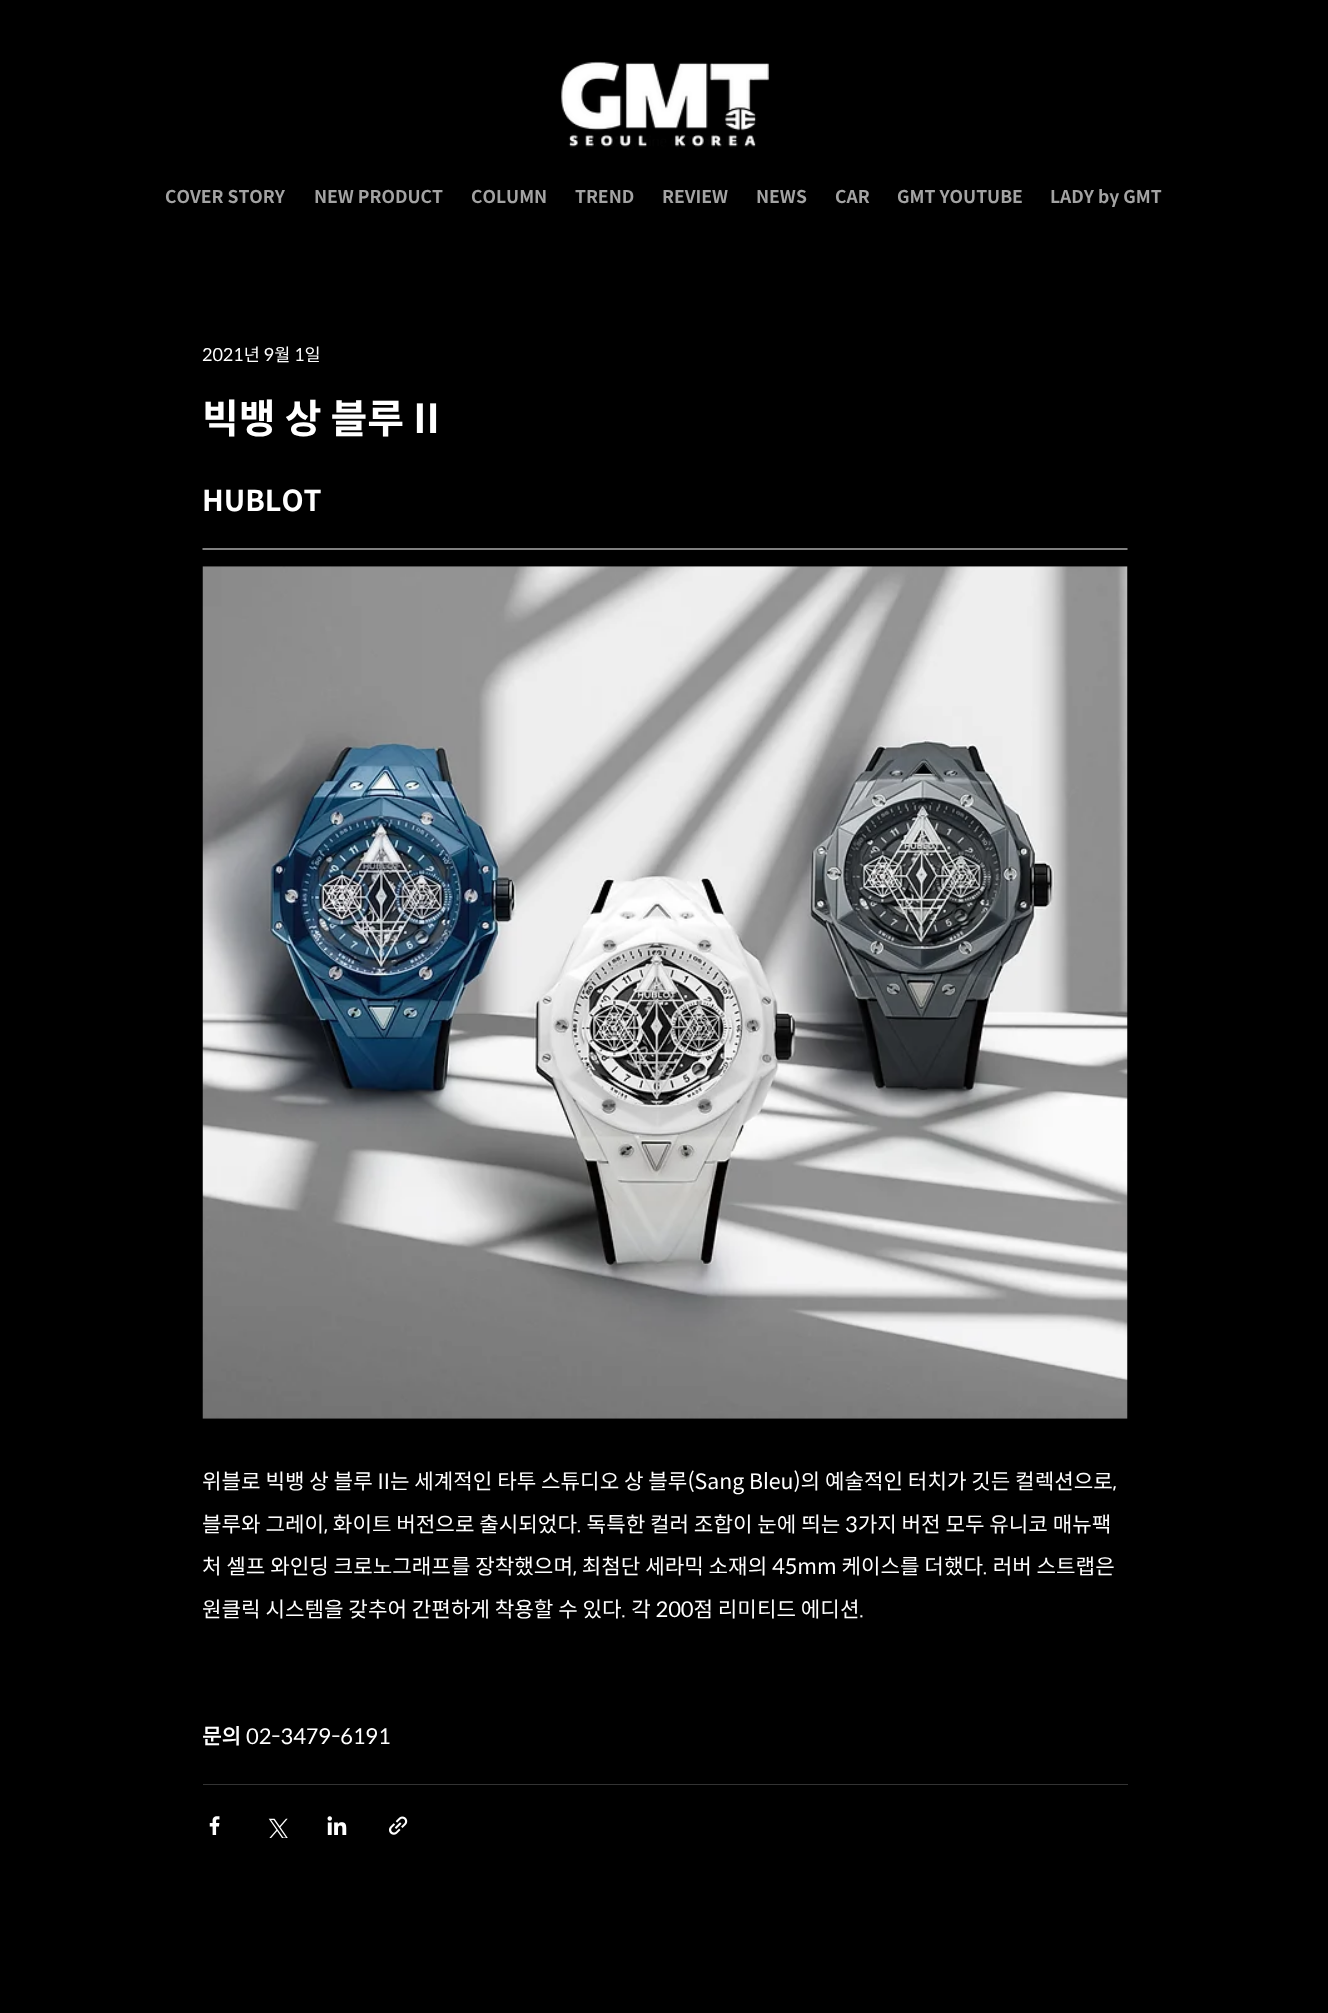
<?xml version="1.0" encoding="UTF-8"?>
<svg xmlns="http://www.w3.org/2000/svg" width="1328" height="2013">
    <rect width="100%" height="100%" fill="#000000"/>
    <image x="561" y="61" width="208" height="89" href="img_01.png"/>
    <text x="165" y="203" font-family="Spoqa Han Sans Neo" font-size="17.5" font-weight="700" fill="#A3A3A3">COVER STORY</text>
    <text x="314" y="203" font-family="Spoqa Han Sans Neo" font-size="17.5" font-weight="700" fill="#A3A3A3">NEW PRODUCT</text>
    <text x="471" y="203" font-family="Spoqa Han Sans Neo" font-size="17.5" font-weight="700" fill="#A3A3A3">COLUMN</text>
    <text x="575" y="203" font-family="Spoqa Han Sans Neo" font-size="17.5" font-weight="700" fill="#A3A3A3">TREND</text>
    <text x="662" y="203" font-family="Spoqa Han Sans Neo" font-size="17.5" font-weight="700" fill="#A3A3A3">REVIEW</text>
    <text x="756" y="203" font-family="Spoqa Han Sans Neo" font-size="17.5" font-weight="700" fill="#A3A3A3">NEWS</text>
    <text x="835" y="203" font-family="Spoqa Han Sans Neo" font-size="17.5" font-weight="700" fill="#A3A3A3">CAR</text>
    <text x="897" y="203" font-family="Spoqa Han Sans Neo" font-size="17.5" font-weight="700" fill="#A3A3A3">GMT YOUTUBE</text>
    <text x="1050" y="203" font-family="Spoqa Han Sans Neo" font-size="17.5" font-weight="700" fill="#A3A3A3">LADY by GMT</text>
    <text x="202" y="361" font-family="Spoqa Han Sans Neo" font-size="17.5" fill="#FFFFFF">2021년 9월 1일</text>
    <text x="202" y="433" font-family="Spoqa Han Sans Neo" font-size="40" font-weight="700" fill="#FFFFFF">빅뱅 상 블루 II</text>
    <text x="202" y="511" font-family="Spoqa Han Sans Neo" font-size="28.75" font-weight="700" fill="#FFFFFF">HUBLOT</text>
    <path d="M 202.5 549 H 1127.5" fill="none" stroke="#FFFFFF" stroke-width="1.2"/>
    <image x="202" y="566" width="926" height="853" href="img_02.png"/>
    <text x="202" y="1489" font-family="Spoqa Han Sans Neo" font-size="21.25" fill="#FFFFFF">위블로 빅뱅 상 블루 II는 세계적인 타투 스튜디오 상 블루(Sang Bleu)의 예술적인 터치가 깃든 컬렉션으로,</text>
    <text font-family="Spoqa Han Sans Neo" font-size="21.25" fill="#FFFFFF">
        <tspan x="202" y="1532">블루와 그레이, 화이트 버전으로 출시되었다. 독특한 컬러 조합이 눈에 띄는 3가지 버전 모두 유니코 매뉴팩</tspan>
        <tspan x="202" y="1574">처 셀프 와인딩 크로노그래프를 장착했으며, 최첨단 세라믹 소재의 45mm 케이스를 더했다. 러버 스트랩은</tspan>
    </text>
    <text x="202" y="1617" font-family="Spoqa Han Sans Neo" font-size="21.25" fill="#FFFFFF">원클릭 시스템을 갖추어 간편하게 착용할 수 있다. 각 200점 리미티드 에디션.</text>
    <text x="202" y="1744" font-family="'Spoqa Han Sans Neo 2'" font-size="21.25" font-weight="700" fill="#FFFFFF">문의</text>
    <text x="246" y="1744" font-family="Spoqa Han Sans Neo" font-size="21.25" fill="#FFFFFF">02-3479-6191</text>
    <rect x="203" y="1784" width="925" height="1" fill="#333333"/>
    <image x="209" y="1816" width="11" height="19" href="img_03.png"/>
    <image x="268" y="1818" width="20" height="20" href="img_04.png"/>
    <image x="327" y="1816" width="20" height="19" href="img_05.png"/>
    <image x="389" y="1816" width="19" height="19" href="img_06.png"/>
</svg>
